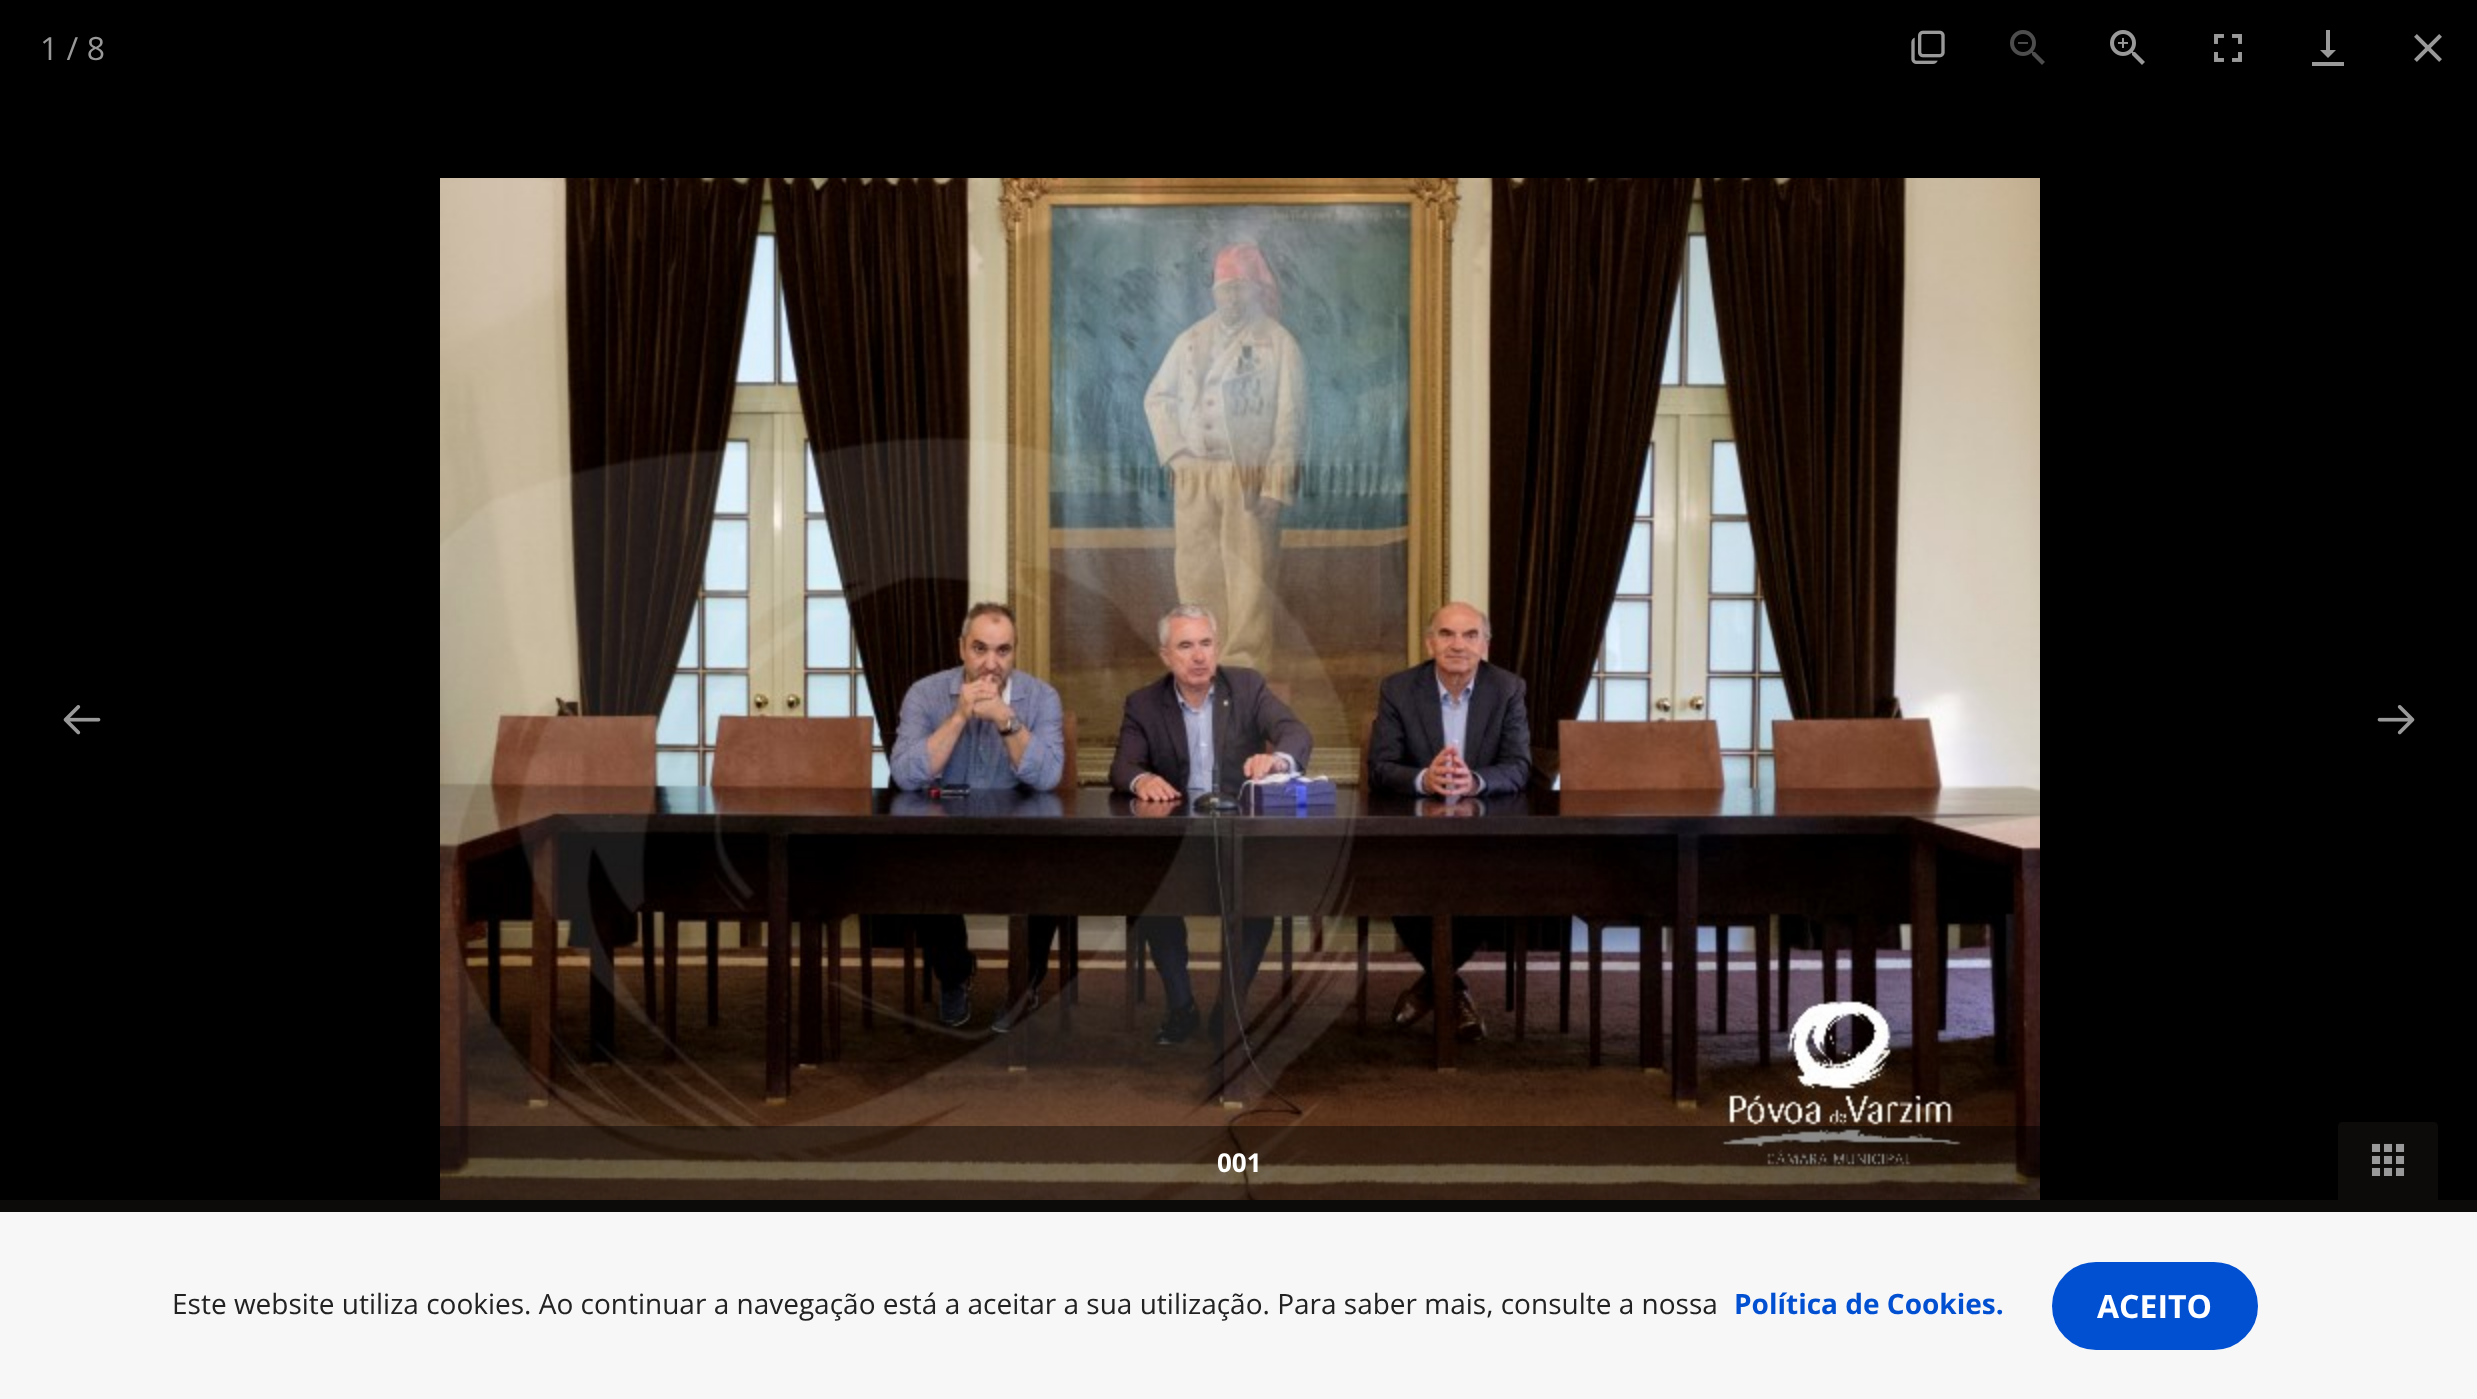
<?xml version="1.0" encoding="UTF-8"?>
<svg xmlns="http://www.w3.org/2000/svg" width="2477" height="1399">
    <rect width="100%" height="100%" fill="#000000"/>
    <text x="40" y="60" font-family="Open Sans" font-size="32" fill="#999999">1 / 8</text>
    <image x="1911" y="30" width="34" height="34" href="img_01.png"/>
    <image x="2010" y="30" width="35" height="35" href="img_02.png"/>
    <image x="2110" y="30" width="35" height="35" href="img_03.png"/>
    <image x="2214" y="34" width="28" height="28" href="img_04.png"/>
    <path d="M 2312 62 H 2344 V 66 H 2312 Z M 2336 50 L 2328 58 L 2320 50 H 2326 V 30 H 2330 V 50 Z" fill="#999999"/>
    <image x="2414" y="34" width="28" height="28" href="img_05.png"/>
    <image x="440" y="178" width="1600" height="1022" href="img_06.png"/>
    <image x="63" y="705" width="38" height="30" href="img_07.png"/>
    <image x="2377" y="705" width="38" height="30" href="img_08.png"/>
    <rect x="0" y="1200" width="2477" height="12" fill="#0D0A0A"/>
    <path d="M 2342 1122 H 2434 C 2436 1122 2438 1124 2438 1126 V 1200 H 2338 V 1126 C 2338 1124 2340 1122 2342 1122 Z" fill="#0D0A0A"/>
    <image x="2371" y="1143" width="34" height="33" href="img_09.png"/>
    <rect x="440" y="1126" width="1600" height="74" fill="#000000" fill-opacity="0.45"/>
    <text x="1217" y="1172" font-family="Open Sans" font-size="26" font-weight="700" fill="#FFFFFF">001</text>
    <rect x="0" y="1212" width="2477" height="187" fill="#F7F7F7"/>
    <text x="172" y="1314" font-family="Open Sans" font-size="28" fill="#222222">Este website utiliza cookies. Ao continuar a navegação está a aceitar a sua utilização. Para saber mais, consulte a nossa</text>
    <text x="1734" y="1314" font-family="Open Sans" font-size="28" font-weight="700" fill="#0250D2">Política de Cookies.</text>
    <rect x="2053" y="1263" width="204" height="86" rx="43" fill="#0250D2" stroke="#0250D2" stroke-width="2"/>
    <text x="2097" y="1318" font-family="Open Sans" font-size="32" font-weight="700" fill="#FFFFFF">ACEITO</text>
</svg>
